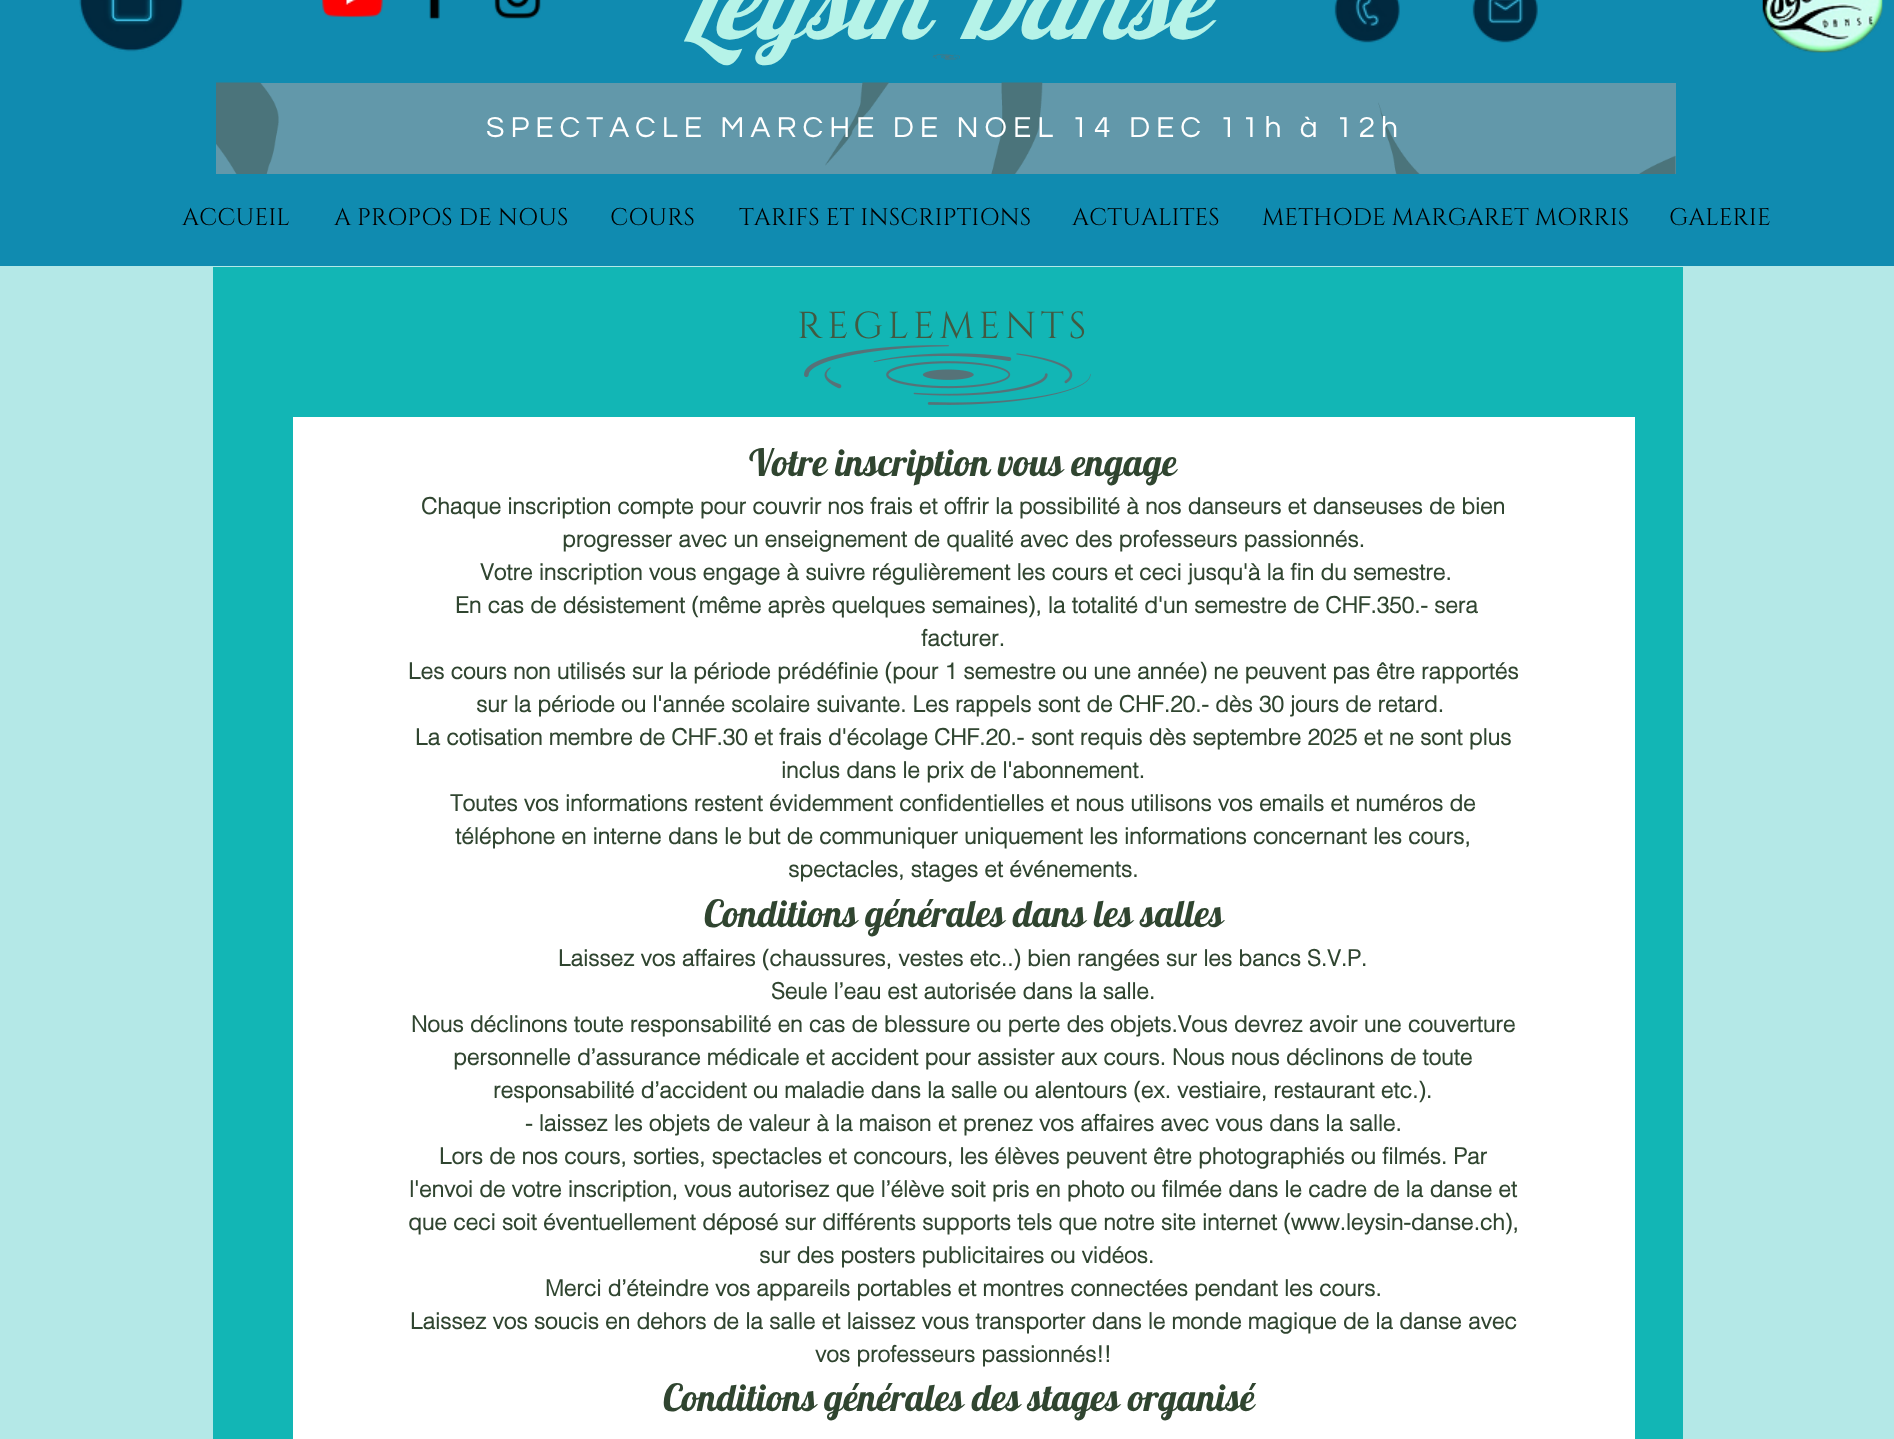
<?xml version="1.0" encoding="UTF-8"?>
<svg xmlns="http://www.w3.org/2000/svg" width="1894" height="1439">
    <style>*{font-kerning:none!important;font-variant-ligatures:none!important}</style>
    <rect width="100%" height="100%" fill="#B4E8E7"/>
    <rect x="0" y="0" width="1894" height="266" fill="#108BB0"/>
    <image x="79" y="0" width="105" height="52" href="img_01.png"/>
    <image x="322" y="0" width="61" height="18" href="img_02.png"/>
    <image x="429" y="0" width="11" height="20" href="img_03.png"/>
    <image x="494" y="0" width="47" height="19" href="img_04.png"/>
    <text x="675" y="39" font-family="Lobster" font-size="105" font-style="italic" fill="#B6F3E8">Leysin Danse</text>
    <image x="1334" y="0" width="66" height="43" href="img_05.png"/>
    <image x="1472" y="0" width="66" height="43" href="img_06.png"/>
    <image x="1762" y="0" width="121" height="53" href="img_07.png"/>
    <rect x="216" y="83" width="1460" height="91" fill="#6298AA"/>
    <image x="216" y="82" width="1460" height="92" href="img_08.png"/>
    <text x="486" y="137" font-family="Questrial" font-size="30" letter-spacing="6" fill="#FFFFFF">SPECTACLE MARCHE DE NOEL 14 DEC 11h à 12h</text>
    <text x="182" y="225" font-family="Cinzel" font-size="24" fill="#000000">ACCUEIL</text>
    <text x="334" y="225" font-family="Cinzel" font-size="24" fill="#000000">A PROPOS DE NOUS</text>
    <text x="610" y="225" font-family="Cinzel" font-size="24" fill="#000000">COURS</text>
    <text x="739" y="225" font-family="Cinzel" font-size="24" fill="#000000">TARIFS ET INSCRIPTIONS</text>
    <text x="1072" y="225" font-family="Cinzel" font-size="24" fill="#000000">ACTUALITES</text>
    <text x="1262" y="225" font-family="Cinzel" font-size="24" fill="#000000">METHODE MARGARET MORRIS</text>
    <text x="1669" y="225" font-family="Cinzel" font-size="24" fill="#000000">GALERIE</text>
    <image x="933" y="54" width="27" height="6" href="img_09.png"/>
    <image x="933" y="54" width="27" height="6" href="img_10.png"/>
    <rect x="213" y="267" width="1470" height="1172" fill="#12B6B5"/>
    <text x="797" y="338" font-family="Cinzel" font-size="37.5" letter-spacing="4.5" fill="#415941">REGLEMENTS</text>
    <image x="804" y="345" width="287" height="60" href="img_11.png"/>
    <rect x="293" y="417" width="1342" height="1022" fill="#FFFFFF"/>
    <text x="749" y="476" font-family="Lobster" font-size="37.5" fill="#304530">Votre inscription vous engage</text>
    <text x="421" y="514" font-family="helvetica" font-size="22.5" font-weight="700" fill="#304530">Chaque inscription compte pour couvrir nos frais et offrir la possibilité à nos danseurs et danseuses de bien</text>
    <text x="562" y="547" font-family="helvetica" font-size="22.5" font-weight="700" fill="#304530">progresser avec un enseignement de qualité avec des professeurs passionnés.</text>
    <text x="480" y="580" font-family="helvetica" font-size="22.5" font-weight="700" fill="#304530">Votre inscription vous engage à suivre régulièrement les cours et ceci jusqu'à la fin du semestre.</text>
    <text x="455" y="613" font-family="helvetica" font-size="22.5" font-weight="700" fill="#304530">En cas de désistement (même après quelques semaines), la totalité d'un semestre de CHF.350.- sera</text>
    <text x="921" y="646" font-family="helvetica" font-size="22.5" font-weight="700" fill="#304530">facturer.</text>
    <text x="408" y="679" font-family="helvetica" font-size="22.5" font-weight="700" fill="#304530">Les cours non utilisés sur la période prédéfinie (pour 1 semestre ou une année) ne peuvent pas être rapportés</text>
    <text x="476" y="712" font-family="helvetica" font-size="22.5" font-weight="700" fill="#304530">sur la période ou l'année scolaire suivante. Les rappels sont de CHF.20.- dès 30 jours de retard.</text>
    <text x="415" y="745" font-family="helvetica" font-size="22.5" font-weight="700" fill="#304530">La cotisation membre de CHF.30 et frais d'écolage CHF.20.-</text>
    <text x="1031" y="745" font-family="helvetica" font-size="22.5" font-weight="700" fill="#304530">sont requis dès septembre 2025 et ne sont plus</text>
    <text x="781" y="778" font-family="helvetica" font-size="22.5" font-weight="700" fill="#304530">inclus dans le prix de l'abonnement.</text>
    <text x="450" y="811" font-family="helvetica" font-size="22.5" font-weight="700" fill="#304530">Toutes vos informations restent évidemment confidentielles et nous utilisons vos emails et numéros de</text>
    <text x="455" y="844" font-family="helvetica" font-size="22.5" font-weight="700" fill="#304530">téléphone en interne dans le but de communiquer uniquement les informations concernant les cours,</text>
    <text x="788" y="877" font-family="helvetica" font-size="22.5" font-weight="700" fill="#304530">spectacles, stages et événements.</text>
    <text x="704" y="927" font-family="Lobster" font-size="37.5" fill="#304530">Conditions générales dans</text>
    <text x="1094" y="927" font-family="Lobster" font-size="37.5" fill="#304530">les salles</text>
    <text x="558" y="966" font-family="helvetica" font-size="22.5" font-weight="700" fill="#304530">Laissez vos affaires (chaussures, vestes etc..) bien rangées sur les bancs S.V.P.</text>
    <text x="771" y="999" font-family="helvetica" font-size="22.5" font-weight="700" fill="#304530">Seule l’eau est autorisée dans la salle.</text>
    <text x="411" y="1032" font-family="helvetica" font-size="22.5" font-weight="700" fill="#304530">Nous déclinons toute responsabilité en cas de blessure ou perte des objets.Vous devrez avoir une couverture</text>
    <text x="453" y="1065" font-family="helvetica" font-size="22.5" font-weight="700" fill="#304530">personnelle d’assurance médicale et accident pour assister aux cours. Nous nous déclinons de toute</text>
    <text x="493" y="1098" font-family="helvetica" font-size="22.5" font-weight="700" fill="#304530">responsabilité d’accident ou maladie dans la salle ou alentours (ex. vestiaire, restaurant etc.).</text>
    <text x="525" y="1131" font-family="helvetica" font-size="22.5" font-weight="700" fill="#304530">- laissez les objets de valeur à la maison et prenez vos affaires avec vous dans la salle.</text>
    <text x="439" y="1164" font-family="helvetica" font-size="22.5" font-weight="700" fill="#304530">Lors de nos cours, sorties, spectacles et concours, les élèves peuvent être photographiés ou filmés. Par</text>
    <text x="409" y="1197" font-family="helvetica" font-size="22.5" font-weight="700" fill="#304530">l'envoi de votre inscription, vous autorisez que l’élève soit pris en photo ou filmée dans le cadre de la danse et</text>
    <text x="408" y="1230" font-family="helvetica" font-size="22.5" font-weight="700" fill="#304530">que ceci soit éventuellement déposé sur différents supports tels que notre site internet (www.leysin-danse.ch),</text>
    <text x="759" y="1263" font-family="helvetica" font-size="22.5" font-weight="700" fill="#304530">sur des posters publicitaires ou vidéos.</text>
    <text x="545" y="1296" font-family="helvetica" font-size="22.5" font-weight="700" fill="#304530">Merci d’éteindre vos appareils portables et montres connectées pendant les cours.</text>
    <text x="410" y="1329" font-family="helvetica" font-size="22.5" font-weight="700" fill="#304530">Laissez vos soucis en dehors de la salle et laissez vous transporter dans le monde magique de la danse avec</text>
    <text x="815" y="1362" font-family="helvetica" font-size="22.5" font-weight="700" fill="#304530">vos professeurs passionnés!!</text>
    <text x="663" y="1411" font-family="Lobster" font-size="37.5" fill="#304530">Conditions générales des</text>
    <text x="1028" y="1411" font-family="Lobster" font-size="37.5" fill="#304530">stages organisé</text>
</svg>
